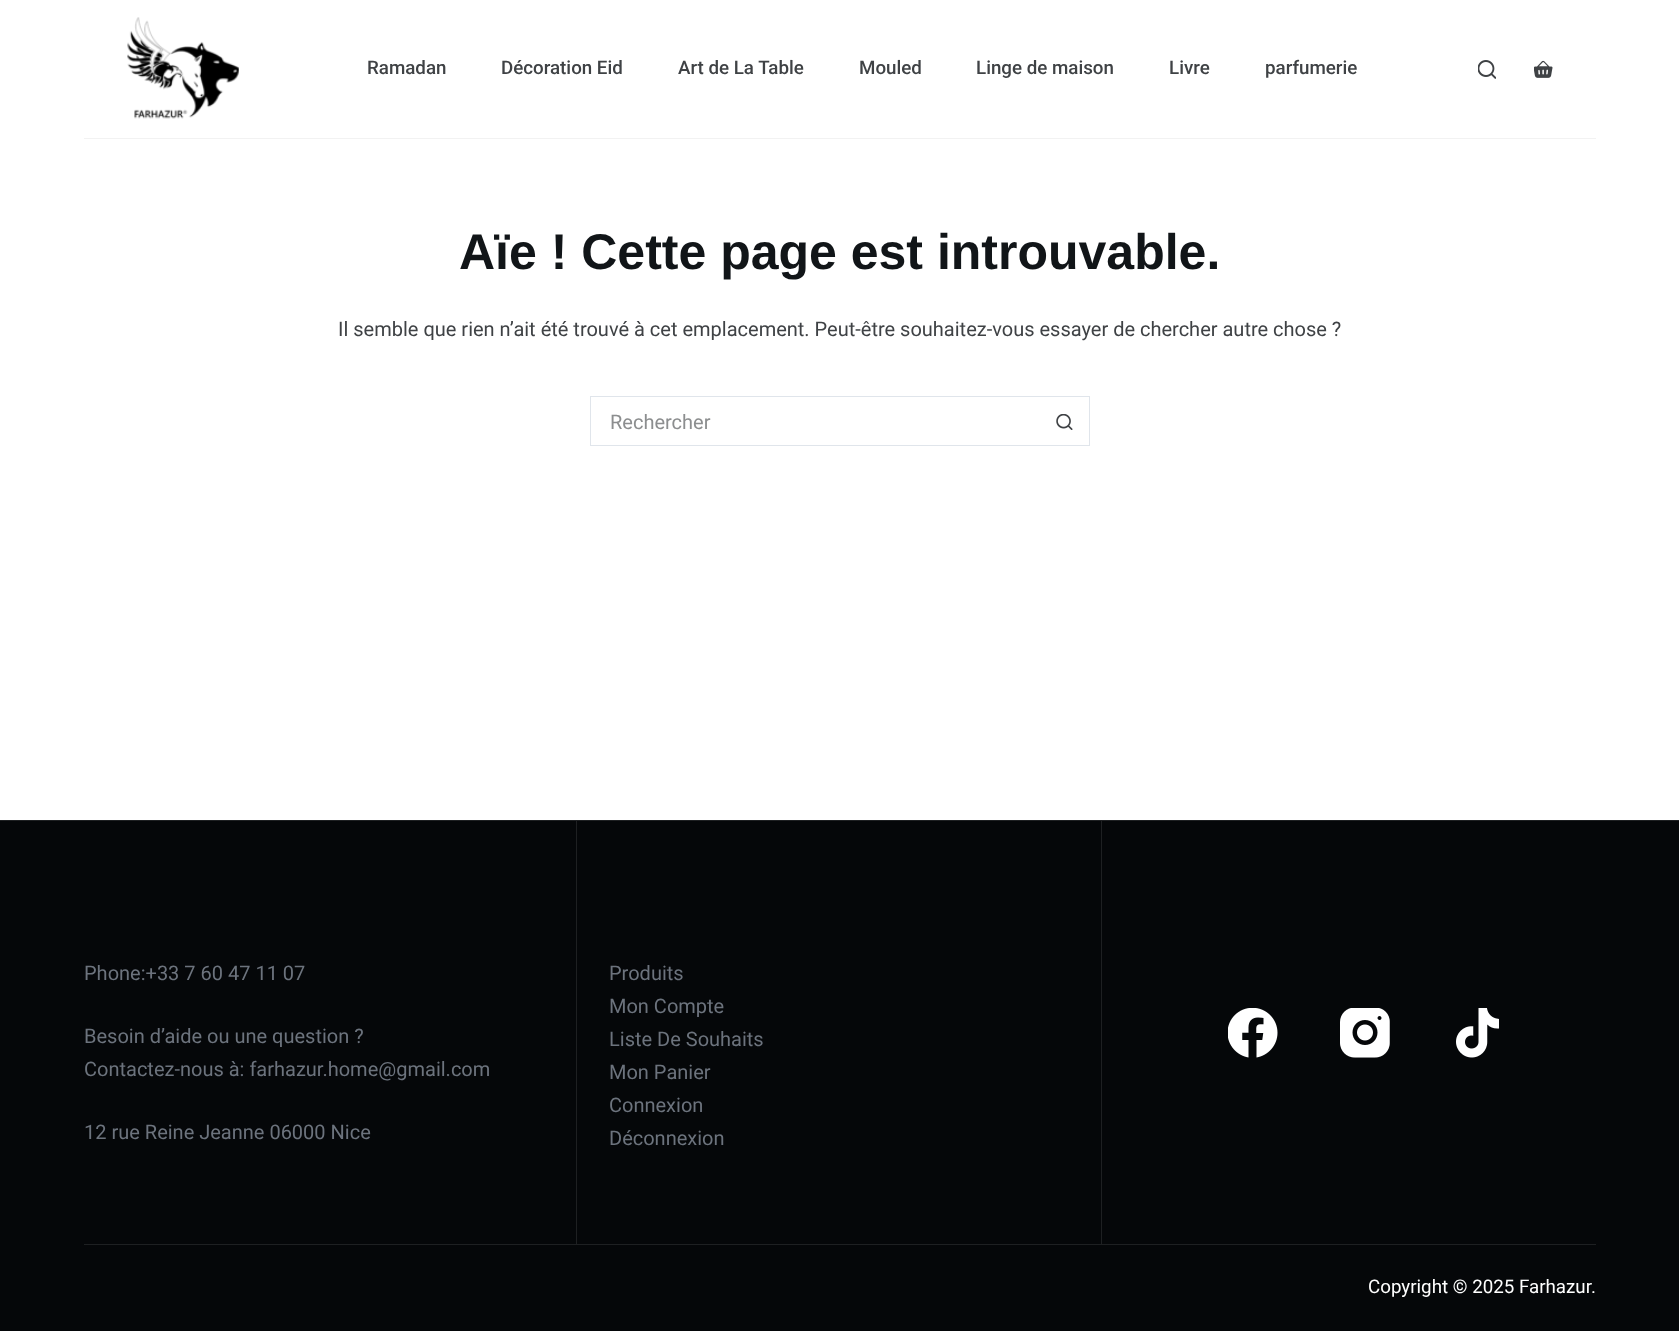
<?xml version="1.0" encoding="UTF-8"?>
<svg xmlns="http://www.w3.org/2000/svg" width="1679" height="1331">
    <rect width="100%" height="100%" fill="#FFFFFF"/>
    <rect x="84" y="138" width="1512" height="1" fill="#F2F2F2"/>
    <image x="127" y="17" width="112" height="102" href="img_01.png"/>
    <text x="367" y="74" font-family="Roboto" font-size="18.75" font-weight="500" fill="#3F4245">Ramadan</text>
    <text x="501" y="74" font-family="Roboto" font-size="18.75" font-weight="500" fill="#3F4245">Décoration Eid</text>
    <text x="678" y="74" font-family="Roboto" font-size="18.75" font-weight="500" fill="#3F4245">Art de La Table</text>
    <text x="859" y="74" font-family="Roboto" font-size="18.75" font-weight="500" fill="#3F4245">Mouled</text>
    <text x="976" y="74" font-family="Roboto" font-size="18.75" font-weight="500" fill="#3F4245">Linge de maison</text>
    <text x="1169" y="74" font-family="Roboto" font-size="18.75" font-weight="500" fill="#3F4245">Livre</text>
    <text x="1265" y="74" font-family="Roboto" font-size="18.75" font-weight="500" fill="#3F4245">parfumerie</text>
    <image x="1478" y="60" width="18" height="19" href="img_02.png"/>
    <image x="1534" y="60" width="19" height="18" href="img_03.png"/>
    <text x="459" y="269" font-family="Liberation Sans" font-size="50" font-weight="700" fill="#111518">Aïe ! Cette page est introuvable.</text>
    <text x="338" y="336" font-family="Roboto" font-size="20" fill="#3F4245">Il semble que rien n’ait été trouvé à cet emplacement. Peut-être souhaitez-vous essayer de chercher autre chose ?</text>
    <rect x="590" y="396" width="500" height="1" fill="#E0E5EB"/>
    <rect x="590" y="445" width="450" height="1" fill="#E0E5EB"/>
    <rect x="590" y="396" width="1" height="50" fill="#E0E5EB"/>
    <text x="610" y="429" font-family="Roboto" font-size="20" fill="#8C8E8F">Rechercher</text>
    <rect x="1089" y="396" width="1" height="50" fill="#E0E5EB"/>
    <rect x="1040" y="445" width="50" height="1" fill="#E0E5EB"/>
    <image x="1056" y="414" width="17" height="16" href="img_04.png"/>
    <rect x="0" y="821" width="1679" height="510" fill="#050709"/>
    <rect x="0" y="820" width="1679" height="1" fill="#1E2022"/>
    <text x="84" y="980" font-family="Roboto" font-size="20" fill="#6C737D">Phone:+33 7 60 47 11 07</text>
    <text font-family="Roboto" font-size="20" fill="#6C737D">
        <tspan x="84" y="1043">Besoin d’aide ou une question ?</tspan>
        <tspan x="84" y="1076">Contactez-nous à: farhazur.home@gmail.com</tspan>
    </text>
    <text x="84" y="1139" font-family="Roboto" font-size="20" fill="#6C737D">12 rue Reine Jeanne 06000 Nice</text>
    <rect x="576" y="821" width="1" height="423" fill="#1E2022"/>
    <text font-family="Roboto" font-size="20" fill="#6C737D">
        <tspan x="609" y="980">Produits</tspan>
        <tspan x="609" y="1013">Mon Compte</tspan>
        <tspan x="609" y="1046">Liste De Souhaits</tspan>
        <tspan x="609" y="1079">Mon Panier</tspan>
        <tspan x="609" y="1112">Connexion</tspan>
        <tspan x="609" y="1145">Déconnexion</tspan>
    </text>
    <rect x="1101" y="821" width="1" height="423" fill="#1E2022"/>
    <image x="1228" y="1008" width="50" height="50" href="img_05.png"/>
    <image x="1340" y="1008" width="50" height="50" href="img_06.png"/>
    <image x="1456" y="1008" width="43" height="50" href="img_07.png"/>
    <rect x="84" y="1244" width="1512" height="1" fill="#1E2022"/>
    <text x="1368" y="1293" font-family="Roboto" font-size="18.75" fill="#FFFFFF">Copyright © 2025 Farhazur.</text>
</svg>
